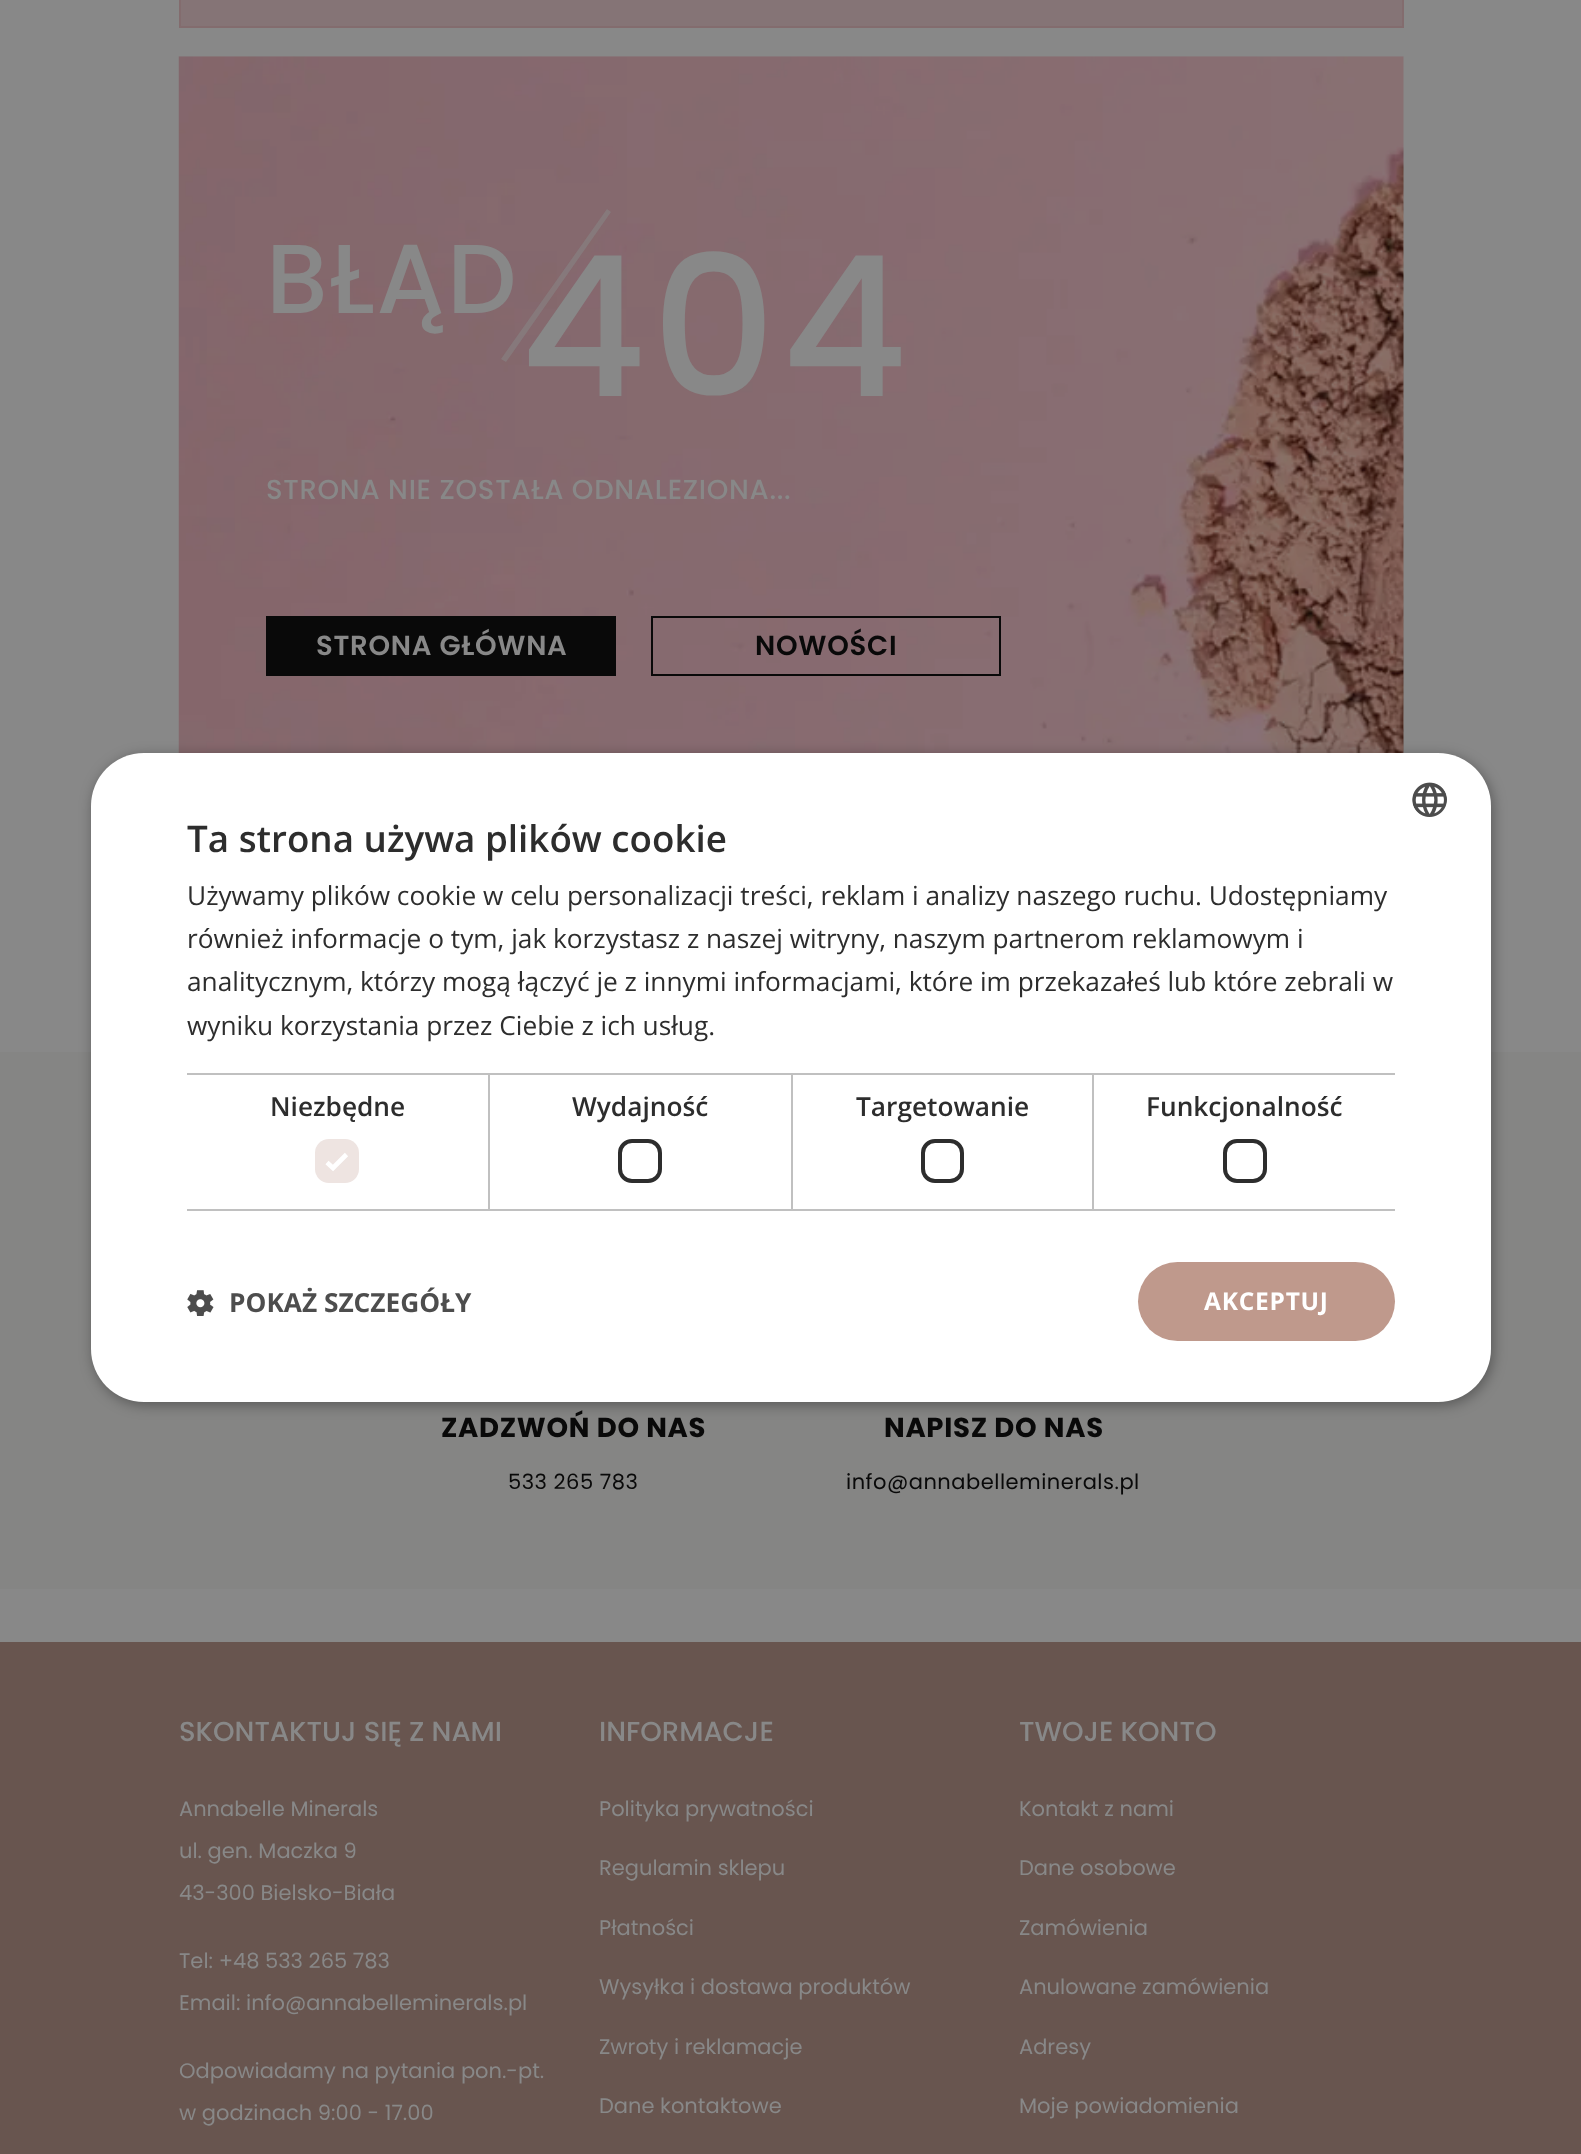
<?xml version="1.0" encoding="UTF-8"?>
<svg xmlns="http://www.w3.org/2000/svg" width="1581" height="2154">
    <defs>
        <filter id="blur1" x="-50%" y="-200%" width="200%" height="500%"><feGaussianBlur stdDeviation="7"/></filter>
    </defs>
    <rect width="100%" height="100%" fill="#888888"/>
    <rect x="180" y="-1" width="1223" height="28" fill="#857476" stroke="#836C6E" stroke-width="2"/>
    <image x="178" y="56" width="1226" height="697" href="img_01.png"/>
    <text x="266" y="313" font-family="Poppins" font-size="98" font-weight="500" letter-spacing="2.5" fill="#888888">BŁĄD</text>
    <text x="520" y="396" font-family="Poppins" font-size="195" font-weight="500" letter-spacing="5" fill="#888888">404</text>
    <path d="M 607 209 L 611 212 L 506 362 L 501 359 Z" fill="#888888" fill-opacity="0.52"/>
    <text x="266" y="499" font-family="Poppins" font-size="27.5" font-weight="500" letter-spacing="0.7" fill="#888888">STRONA NIE ZOSTAŁA ODNALEZIONA...</text>
    <rect x="266" y="616" width="350" height="60" fill="#090909"/>
    <text x="316" y="655" font-family="Poppins" font-size="27.5" font-weight="600" letter-spacing="0.75" fill="#888888">STRONA GŁÓWNA</text>
    <rect x="652" y="617" width="348" height="58" fill="none" stroke="#090909" stroke-width="2"/>
    <text x="755" y="655" font-family="Poppins" font-size="27.5" font-weight="600" letter-spacing="0.75" fill="#090909">NOWOŚCI</text>
    <rect x="0" y="1052" width="1581" height="537" fill="#858584"/>
    <text x="441" y="1437" font-family="Poppins" font-size="27.5" font-weight="700" letter-spacing="0.7" fill="#090909">ZADZWOŃ DO NAS</text>
    <text x="508" y="1489" font-family="Poppins" font-size="21" letter-spacing="0.5" fill="#090909">533 265 783</text>
    <text x="884" y="1437" font-family="Poppins" font-size="27.5" font-weight="700" letter-spacing="0.7" fill="#090909">NAPISZ DO NAS</text>
    <text x="846" y="1489" font-family="Poppins" font-size="21" letter-spacing="0.5" fill="#090909">info@annabelleminerals.pl</text>
    <rect x="0" y="1642" width="1581" height="512" fill="#68554F"/>
    <text x="179" y="1741" font-family="Poppins" font-size="27.5" font-weight="500" fill="#888888">SKONTAKTUJ SIĘ Z NAMI</text>
    <text x="179" y="1816" font-family="Poppins" font-size="21" fill="#888888">Annabelle Minerals</text>
    <text x="179" y="1858" font-family="Poppins" font-size="21" fill="#888888">ul. gen. Maczka 9</text>
    <text x="179" y="1900" font-family="Poppins" font-size="21" fill="#888888">43-300 Bielsko-Biała</text>
    <text x="179" y="1968" font-family="Poppins" font-size="21" fill="#888888">Tel: +48 533 265 783</text>
    <text x="179" y="2010" font-family="Poppins" font-size="21" fill="#888888">Email: info@annabelleminerals.pl</text>
    <text x="179" y="2078" font-family="Poppins" font-size="21" fill="#888888">Odpowiadamy na pytania pon.-pt.</text>
    <text x="179" y="2120" font-family="Poppins" font-size="21" fill="#888888">w godzinach 9:00 - 17.00</text>
    <text x="599" y="1741" font-family="Poppins" font-size="27.5" font-weight="500" fill="#888888">INFORMACJE</text>
    <text x="599" y="1816" font-family="Poppins" font-size="21" fill="#888888">Polityka prywatności</text>
    <text x="599" y="1875" font-family="Poppins" font-size="21" fill="#888888">Regulamin sklepu</text>
    <text x="599" y="1935" font-family="Poppins" font-size="21" fill="#888888">Płatności</text>
    <text x="599" y="1994" font-family="Poppins" font-size="21" fill="#888888">Wysyłka i dostawa produktów</text>
    <text x="599" y="2054" font-family="Poppins" font-size="21" fill="#888888">Zwroty i reklamacje</text>
    <text x="599" y="2113" font-family="Poppins" font-size="21" fill="#888888">Dane kontaktowe</text>
    <text x="1019" y="1741" font-family="Poppins" font-size="27.5" font-weight="500" fill="#888888">TWOJE KONTO</text>
    <text x="1019" y="1816" font-family="Poppins" font-size="21" fill="#888888">Kontakt z nami</text>
    <text x="1019" y="1875" font-family="Poppins" font-size="21" fill="#888888">Dane osobowe</text>
    <text x="1019" y="1935" font-family="Poppins" font-size="21" fill="#888888">Zamówienia</text>
    <text x="1019" y="1994" font-family="Poppins" font-size="21" fill="#888888">Anulowane zamówienia</text>
    <text x="1019" y="2054" font-family="Poppins" font-size="21" fill="#888888">Adresy</text>
    <text x="1019" y="2113" font-family="Poppins" font-size="21" fill="#888888">Moje powiadomienia</text>
    <rect x="93" y="756" width="1400" height="649" rx="53" fill="#000000" fill-opacity="0.35" filter="url(#blur1)"/>
    <rect x="91" y="753" width="1400" height="649" rx="53" fill="#FFFFFF"/>
    <image x="1412" y="782" width="35" height="35" href="img_02.png"/>
    <text x="187" y="852" font-family="Open Sans" font-size="36.75" font-weight="600" fill="#2D2D2D">Ta strona używa plików cookie</text>
    <text font-family="Open Sans" font-size="26.25" fill="#2D2D2D">
        <tspan x="187" y="905">Używamy plików cookie w celu personalizacji treści, reklam i analizy naszego ruchu. Udostępniamy</tspan>
        <tspan x="187" y="948">również informacje o tym, jak korzystasz z naszej witryny, naszym partnerom reklamowym i</tspan>
        <tspan x="187" y="991">analitycznym, którzy mogą łączyć je z innymi informacjami, które im przekazałeś lub które zebrali w</tspan>
        <tspan x="187" y="1035">wyniku korzystania przez Ciebie z ich usług.</tspan>
    </text>
    <rect x="187" y="1073" width="1208" height="2" fill="#C0C0C0"/>
    <rect x="488" y="1073" width="2" height="138" fill="#C0C0C0"/>
    <rect x="187" y="1209" width="303" height="2" fill="#C0C0C0"/>
    <text x="270" y="1116" font-family="Open Sans" font-size="26.25" font-weight="600" fill="#2D2D2D">Niezbędne</text>
    <rect x="315" y="1139" width="44" height="44" rx="14" fill="#EEE4E1"/>
    <path d="M 327 1162.5 L 333 1168 L 346.5 1154.5" fill="none" stroke="#FFFFFF" stroke-width="4.6"/>
    <rect x="791" y="1073" width="2" height="138" fill="#C0C0C0"/>
    <rect x="490" y="1209" width="303" height="2" fill="#C0C0C0"/>
    <text x="572" y="1116" font-family="Open Sans" font-size="26.25" font-weight="600" fill="#2D2D2D">Wydajność</text>
    <rect x="620" y="1141" width="40" height="40" rx="12" fill="none" stroke="#2D2D2D" stroke-width="4"/>
    <rect x="1092" y="1073" width="2" height="138" fill="#C0C0C0"/>
    <rect x="793" y="1209" width="602" height="2" fill="#C0C0C0"/>
    <text x="856" y="1116" font-family="Open Sans" font-size="26.25" font-weight="600" fill="#2D2D2D">Targetowanie</text>
    <rect x="923" y="1141" width="39" height="40" rx="12" fill="none" stroke="#2D2D2D" stroke-width="4"/>
    <text x="1146" y="1116" font-family="Open Sans" font-size="26.25" font-weight="600" fill="#2D2D2D">Funkcjonalność</text>
    <rect x="1225" y="1141" width="40" height="40" rx="12" fill="none" stroke="#2D2D2D" stroke-width="4"/>
    <image x="187" y="1290" width="27" height="26" href="img_03.png"/>
    <text x="229" y="1312" font-family="Open Sans" font-size="26.25" font-weight="700" fill="#4D4D4D">POKAŻ SZCZEGÓŁY</text>
    <rect x="1138" y="1262" width="257" height="79" rx="39.5" fill="#BF998C"/>
    <text x="1204" y="1310" font-family="Open Sans" font-size="24.5" font-weight="700" letter-spacing="0.75" fill="#FFFFFF">AKCEPTUJ</text>
</svg>
